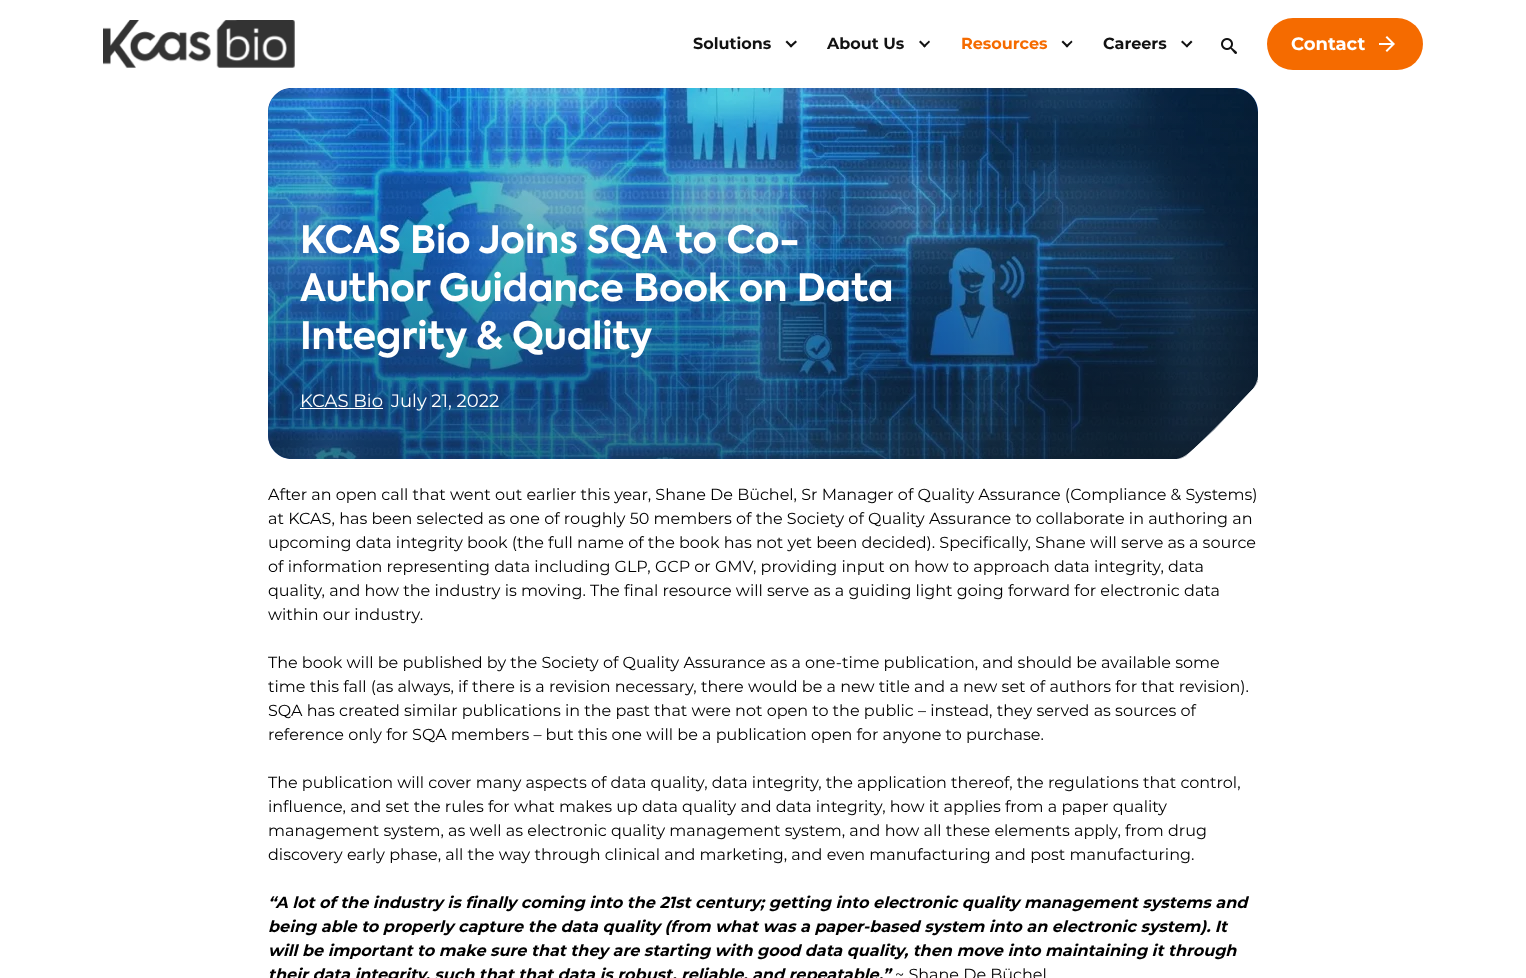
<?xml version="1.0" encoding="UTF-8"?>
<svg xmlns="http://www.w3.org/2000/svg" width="1526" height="978">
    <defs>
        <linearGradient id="g1" gradientUnits="userSpaceOnUse" x1="763" y1="88" x2="763" y2="459"><stop offset="0" stop-color="#121212" stop-opacity="0"/><stop offset="1" stop-color="#121212" stop-opacity="0.42"/></linearGradient>
        <clipPath id="clip1"><path d="M 292 88 H 1234 C 1247.5 88 1258 98.5 1258 112 V 459 H 292 C 278.5 459 268 448.5 268 435 V 112 C 268 98.5 278.5 88 292 88 Z"/></clipPath>
    </defs>
    <rect width="100%" height="100%" fill="#FFFFFF"/>
    <image x="103" y="20" width="192" height="48" href="img_01.png"/>
    <text x="693" y="49" font-family="'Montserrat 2'" font-size="16" font-weight="100" fill="#121212">Solutions</text>
    <path d="M 797 42 L 791 47.5 L 789.5 46 L 795.5 40.5 Z" fill="#121212"/>
    <path d="M 792.5 46 L 791 47.5 L 785.5 42 L 787 40.5 Z" fill="#121212"/>
    <text x="827" y="49" font-family="'Montserrat 2'" font-size="16" font-weight="100" fill="#121212">About Us</text>
    <path d="M 930 42 L 924.5 47.5 L 923 46 L 929 40.5 Z" fill="#121212"/>
    <path d="M 926 46 L 924.5 47.5 L 919 42 L 920.5 40.5 Z" fill="#121212"/>
    <text x="961" y="49" font-family="'Montserrat 2'" font-size="16" font-weight="100" fill="#F56B00">Resources</text>
    <path d="M 1072.5 42 L 1067 47.5 L 1065.5 46 L 1071.5 40.5 Z" fill="#121212"/>
    <path d="M 1068.5 46 L 1067 47.5 L 1061.5 42 L 1063 40.5 Z" fill="#121212"/>
    <text x="1103" y="49" font-family="'Montserrat 2'" font-size="16" font-weight="100" fill="#121212">Careers</text>
    <path d="M 1192.5 42 L 1187 47.5 L 1185.5 46 L 1191 40.5 Z" fill="#121212"/>
    <path d="M 1188 46 L 1187 47.5 L 1181 42 L 1182.5 40.5 Z" fill="#121212"/>
    <image x="1221" y="38" width="16" height="16" href="img_02.png"/>
    <rect x="1267" y="18" width="156" height="52" rx="26" fill="#F56B00"/>
    <text x="1291" y="50" font-family="'Montserrat 2'" font-size="18" font-weight="100" fill="#FFFFFF">Contact</text>
    <image x="1379" y="36" width="16" height="16" href="img_03.png"/>
    <path d="M 292 88 H 1234 C 1247.5 88 1258 98.5 1258 112 V 459 H 292 C 278.5 459 268 448.5 268 435 V 112 C 268 98.5 278.5 88 292 88 Z" fill="#124791"/>
    <image x="268" y="88" width="990" height="371" href="img_04.png"/>
    <rect x="268" y="88" width="990" height="371" rx="24" fill="url(#g1)"/>
    <text font-family="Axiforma" font-size="37.6" font-weight="700" fill="#FFFFFF">
        <tspan x="300" y="253">KCAS Bio Joins SQA to Co-</tspan>
        <tspan x="300" y="301">Author Guidance Book on Data</tspan>
        <tspan x="300" y="349">Integrity &amp; Quality</tspan>
    </text>
    <text x="300" y="407" font-family="Montserrat" font-size="18" font-weight="100" fill="#FFFFFF">KCAS Bio</text>
    <rect x="300" y="408" width="83" height="1" fill="#FFFFFF"/>
    <text x="391" y="407" font-family="Montserrat" font-size="18" font-weight="100" fill="#FFFFFF">July 21, 2022</text>
    <path d="M 1258 380 V 459 H 1179 C 1182 458 1185 457 1188 454 L 1214 430 L 1249 393 C 1253 389 1257 385 1258 380 Z" fill="#FFFFFF"/>
    <g clip-path="url(#clip1)">
        <path d="M 1171.5 460 V 461 V 460.5 V 461 H 1259.5 V 370.5 H 1259 C 1259 376.5 1257.5 383 1254 388 L 1226 417.5 L 1201.5 442 C 1196.5 446.5 1191.5 452 1186 455.5 C 1181.5 458.5 1177 460 1171.5 460 Z" fill="none" stroke="#FFFFFF" stroke-width="0.7"/>
    </g>
    <text font-family="Montserrat" font-size="16" font-weight="100" fill="#000000">
        <tspan x="268" y="500">After an open call that went out earlier this year, Shane De Büchel, Sr Manager of Quality Assurance (Compliance &amp; Systems)</tspan>
        <tspan x="268" y="524">at KCAS, has been selected as one of roughly 50 members of the Society of Quality Assurance to collaborate in authoring an</tspan>
        <tspan x="268" y="548">upcoming data integrity book (the full name of the book has not yet been decided). Specifically, Shane will serve as a source</tspan>
        <tspan x="268" y="572">of information representing data including GLP, GCP or GMV, providing input on how to approach data integrity, data</tspan>
        <tspan x="268" y="596">quality, and how the industry is moving. The final resource will serve as a guiding light going forward for electronic data</tspan>
        <tspan x="268" y="620">within our industry.</tspan>
    </text>
    <text font-family="Montserrat" font-size="16" font-weight="100" fill="#000000">
        <tspan x="268" y="668">The book will be published by the Society of Quality Assurance as a one-time publication, and should be available some</tspan>
        <tspan x="268" y="692">time this fall (as always, if there is a revision necessary, there would be a new title and a new set of authors for that revision).</tspan>
        <tspan x="268" y="716">SQA has created similar publications in the past that were not open to the public – instead, they served as sources of</tspan>
        <tspan x="268" y="740">reference only for SQA members – but this one will be a publication open for anyone to purchase.</tspan>
    </text>
    <text font-family="Montserrat" font-size="16" font-weight="100" fill="#000000">
        <tspan x="268" y="788">The publication will cover many aspects of data quality, data integrity, the application thereof, the regulations that control,</tspan>
        <tspan x="268" y="812">influence, and set the rules for what makes up data quality and data integrity, how it applies from a paper quality</tspan>
        <tspan x="268" y="836">management system, as well as electronic quality management system, and how all these elements apply, from drug</tspan>
        <tspan x="268" y="860">discovery early phase, all the way through clinical and marketing, and even manufacturing and post manufacturing.</tspan>
    </text>
    <text font-family="Montserrat" font-size="16" font-weight="100" font-style="italic" fill="#000000">
        <tspan x="268" y="908">“A lot of the industry is finally coming into the 21st century; getting into electronic quality management systems and</tspan>
        <tspan x="268" y="932">being able to properly capture the data quality (from what was a paper-based system into an electronic system). It</tspan>
        <tspan x="268" y="956">will be important to make sure that they are starting with good data quality, then move into maintaining it through</tspan>
        <tspan x="268" y="980">their data integrity, such that that data is robust, reliable, and repeatable.”</tspan>
    </text>
    <text x="895" y="980" font-family="Montserrat" font-size="16" font-weight="100" fill="#000000">~ Shane De Büchel</text>
</svg>
